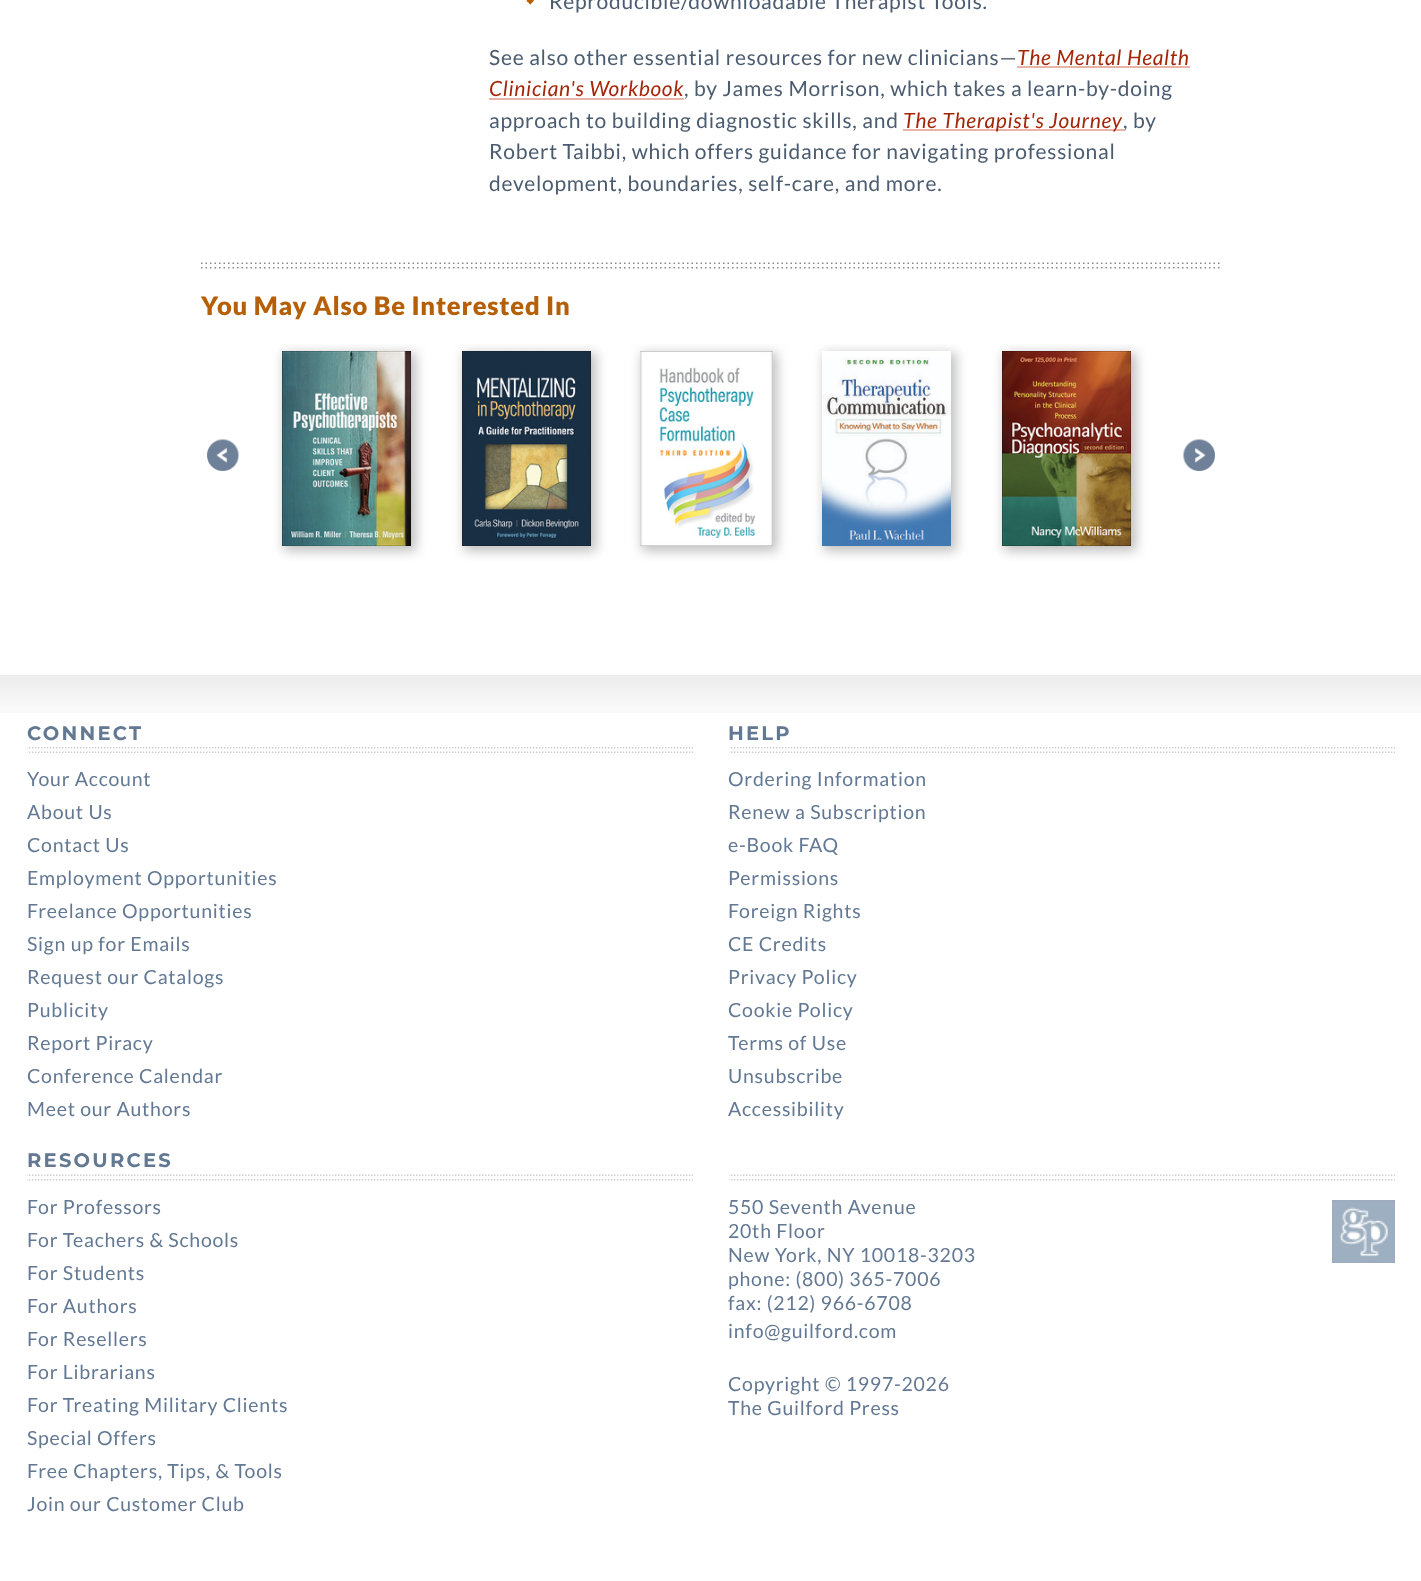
<?xml version="1.0" encoding="UTF-8"?>
<svg xmlns="http://www.w3.org/2000/svg" width="1421" height="1581">
    <defs>
        <clipPath id="clip1"><rect x="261" y="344" width="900" height="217"/></clipPath>
        <filter id="blur1" x="-50%" y="-200%" width="200%" height="500%"><feGaussianBlur stdDeviation="6"/></filter>
        <clipPath id="clip2"><path d="M 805 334 H 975 V 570 H 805 Z M 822 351 H 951 V 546 H 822 Z" clip-rule="evenodd"/></clipPath>
    </defs>
    <rect width="100%" height="100%" fill="#FFFFFF"/>
    <image x="526" y="0" width="8" height="5" href="img_01.png"/>
    <text x="549" y="9" font-family="Lato" font-size="21" letter-spacing="0.75" fill="#4B5C70">Reproducible/downloadable Therapist Tools.</text>
    <text x="489" y="65" font-family="Lato" font-size="21" letter-spacing="0.75" fill="#4B5C70">See also other essential resources for new clinicians—</text>
    <text x="1017" y="65" font-family="Lato" font-size="21" font-style="italic" letter-spacing="0.75" fill="#A42609">The Mental Health</text>
    <rect x="1017" y="66" width="173" height="2" fill="#E8B4A8"/>
    <text x="489" y="96" font-family="Lato" font-size="21" font-style="italic" letter-spacing="0.75" fill="#A42609">Clinician's Workbook</text>
    <rect x="489" y="98" width="195" height="2" fill="#E8B4A8"/>
    <text x="684" y="96" font-family="Lato" font-size="21" letter-spacing="0.75" fill="#4B5C70">, by James Morrison, which takes a learn-by-doing</text>
    <text x="489" y="128" font-family="Lato" font-size="21" letter-spacing="0.75" fill="#4B5C70">approach to building diagnostic skills, and</text>
    <rect x="903" y="129" width="221" height="2" fill="#E8B4A8"/>
    <text x="903" y="128" font-family="Lato" font-size="21" font-style="italic" letter-spacing="0.75" fill="#A42609">The Therapist's Journey</text>
    <text x="1123" y="128" font-family="Lato" font-size="21" letter-spacing="0.75" fill="#4B5C70">, by</text>
    <text font-family="Lato" font-size="21" letter-spacing="0.75" fill="#4B5C70">
        <tspan x="489" y="159">Robert Taibbi, which offers guidance for navigating professional</tspan>
        <tspan x="489" y="191">development, boundaries, self-care, and more.</tspan>
    </text>
    <image x="201" y="262" width="1019" height="7" href="img_02.png"/>
    <text x="201" y="315" font-family="Lato" font-size="25.5" font-weight="900" letter-spacing="0.75" fill="#B65F09">You May Also Be Interested In</text>
    <image x="207" y="439" width="32" height="32" href="img_03.png"/>
    <g clip-path="url(#clip1)">
        <rect x="284" y="353" width="132" height="198" fill="#A8A8A8" fill-opacity="0.75" filter="url(#blur1)"/>
    </g>
    <image x="282" y="351" width="129" height="195" href="img_04.png"/>
    <g clip-path="url(#clip1)">
        <rect x="464" y="353" width="132" height="198" fill="#A8A8A8" fill-opacity="0.75" filter="url(#blur1)"/>
    </g>
    <image x="462" y="351" width="129" height="195" href="img_05.png"/>
    <g clip-path="url(#clip1)">
        <rect x="642" y="353" width="135" height="198" fill="#A8A8A8" fill-opacity="0.75" filter="url(#blur1)"/>
    </g>
    <image x="640" y="351" width="133" height="195" href="img_06.png"/>
    <g clip-path="url(#clip1)">
        <g clip-path="url(#clip2)">
            <rect x="824" y="353" width="132" height="198" fill="#A8A8A8" fill-opacity="0.75" filter="url(#blur1)"/>
        </g>
    </g>
    <image x="822" y="357" width="129" height="189" href="img_07.png"/>
    <g clip-path="url(#clip1)">
        <rect x="1004" y="353" width="132" height="198" fill="#A8A8A8" fill-opacity="0.75" filter="url(#blur1)"/>
    </g>
    <image x="1002" y="351" width="129" height="195" href="img_08.png"/>
    <image x="1183" y="439" width="32" height="32" href="img_09.png"/>
    <image x="0" y="675" width="1421" height="38" href="img_10.png"/>
    <image x="27" y="747" width="666" height="6" href="img_11.png"/>
    <text x="27" y="740" font-family="Montserrat" font-size="19.5" font-weight="700" letter-spacing="2.25" fill="#627893">CONNECT</text>
    <text font-family="Lato" font-size="19.5" letter-spacing="0.75" fill="#627893">
        <tspan x="27" y="786">Your Account</tspan>
        <tspan x="27" y="819">About Us</tspan>
        <tspan x="27" y="852">Contact Us</tspan>
        <tspan x="27" y="885">Employment Opportunities</tspan>
        <tspan x="27" y="918">Freelance Opportunities</tspan>
        <tspan x="27" y="951">Sign up for Emails</tspan>
        <tspan x="27" y="984">Request our Catalogs</tspan>
        <tspan x="27" y="1017">Publicity</tspan>
        <tspan x="27" y="1050">Report Piracy</tspan>
        <tspan x="27" y="1083">Conference Calendar</tspan>
        <tspan x="27" y="1116">Meet our Authors</tspan>
    </text>
    <image x="729" y="747" width="666" height="6" href="img_12.png"/>
    <text x="728" y="740" font-family="Montserrat" font-size="19.5" font-weight="700" letter-spacing="2.25" fill="#627893">HELP</text>
    <text font-family="Lato" font-size="19.5" letter-spacing="0.75" fill="#627893">
        <tspan x="728" y="786">Ordering Information</tspan>
        <tspan x="728" y="819">Renew a Subscription</tspan>
        <tspan x="728" y="852">e-Book FAQ</tspan>
        <tspan x="728" y="885">Permissions</tspan>
        <tspan x="728" y="918">Foreign Rights</tspan>
        <tspan x="728" y="951">CE Credits</tspan>
        <tspan x="728" y="984">Privacy Policy</tspan>
        <tspan x="728" y="1017">Cookie Policy</tspan>
        <tspan x="728" y="1050">Terms of Use</tspan>
        <tspan x="728" y="1083">Unsubscribe</tspan>
        <tspan x="728" y="1116">Accessibility</tspan>
    </text>
    <image x="27" y="1174" width="666" height="7" href="img_13.png"/>
    <text x="27" y="1167" font-family="Montserrat" font-size="19.5" font-weight="700" letter-spacing="2.25" fill="#627893">RESOURCES</text>
    <text font-family="Lato" font-size="19.5" letter-spacing="0.75" fill="#627893">
        <tspan x="27" y="1214">For Professors</tspan>
        <tspan x="27" y="1247">For Teachers &amp; Schools</tspan>
        <tspan x="27" y="1280">For Students</tspan>
        <tspan x="27" y="1313">For Authors</tspan>
        <tspan x="27" y="1346">For Resellers</tspan>
        <tspan x="27" y="1379">For Librarians</tspan>
        <tspan x="27" y="1412">For Treating Military Clients</tspan>
        <tspan x="27" y="1445">Special Offers</tspan>
        <tspan x="27" y="1478">Free Chapters, Tips, &amp; Tools</tspan>
        <tspan x="27" y="1511">Join our Customer Club</tspan>
    </text>
    <image x="729" y="1174" width="666" height="7" href="img_13.png"/>
    <image x="1332" y="1200" width="63" height="63" href="img_14.png"/>
    <text font-family="Lato" font-size="19.5" letter-spacing="0.75" fill="#627893">
        <tspan x="728" y="1214">550 Seventh Avenue</tspan>
        <tspan x="728" y="1238">20th Floor</tspan>
        <tspan x="728" y="1262">New York, NY 10018-3203</tspan>
        <tspan x="728" y="1286">phone: (800) 365-7006</tspan>
        <tspan x="728" y="1310">fax: (212) 966-6708</tspan>
        <tspan x="728" y="1338">info@guilford.com</tspan>
    </text>
    <text font-family="Lato" font-size="19.5" letter-spacing="0.75" fill="#627893">
        <tspan x="728" y="1391">Copyright © 1997-2026</tspan>
        <tspan x="728" y="1415">The Guilford Press</tspan>
    </text>
</svg>
